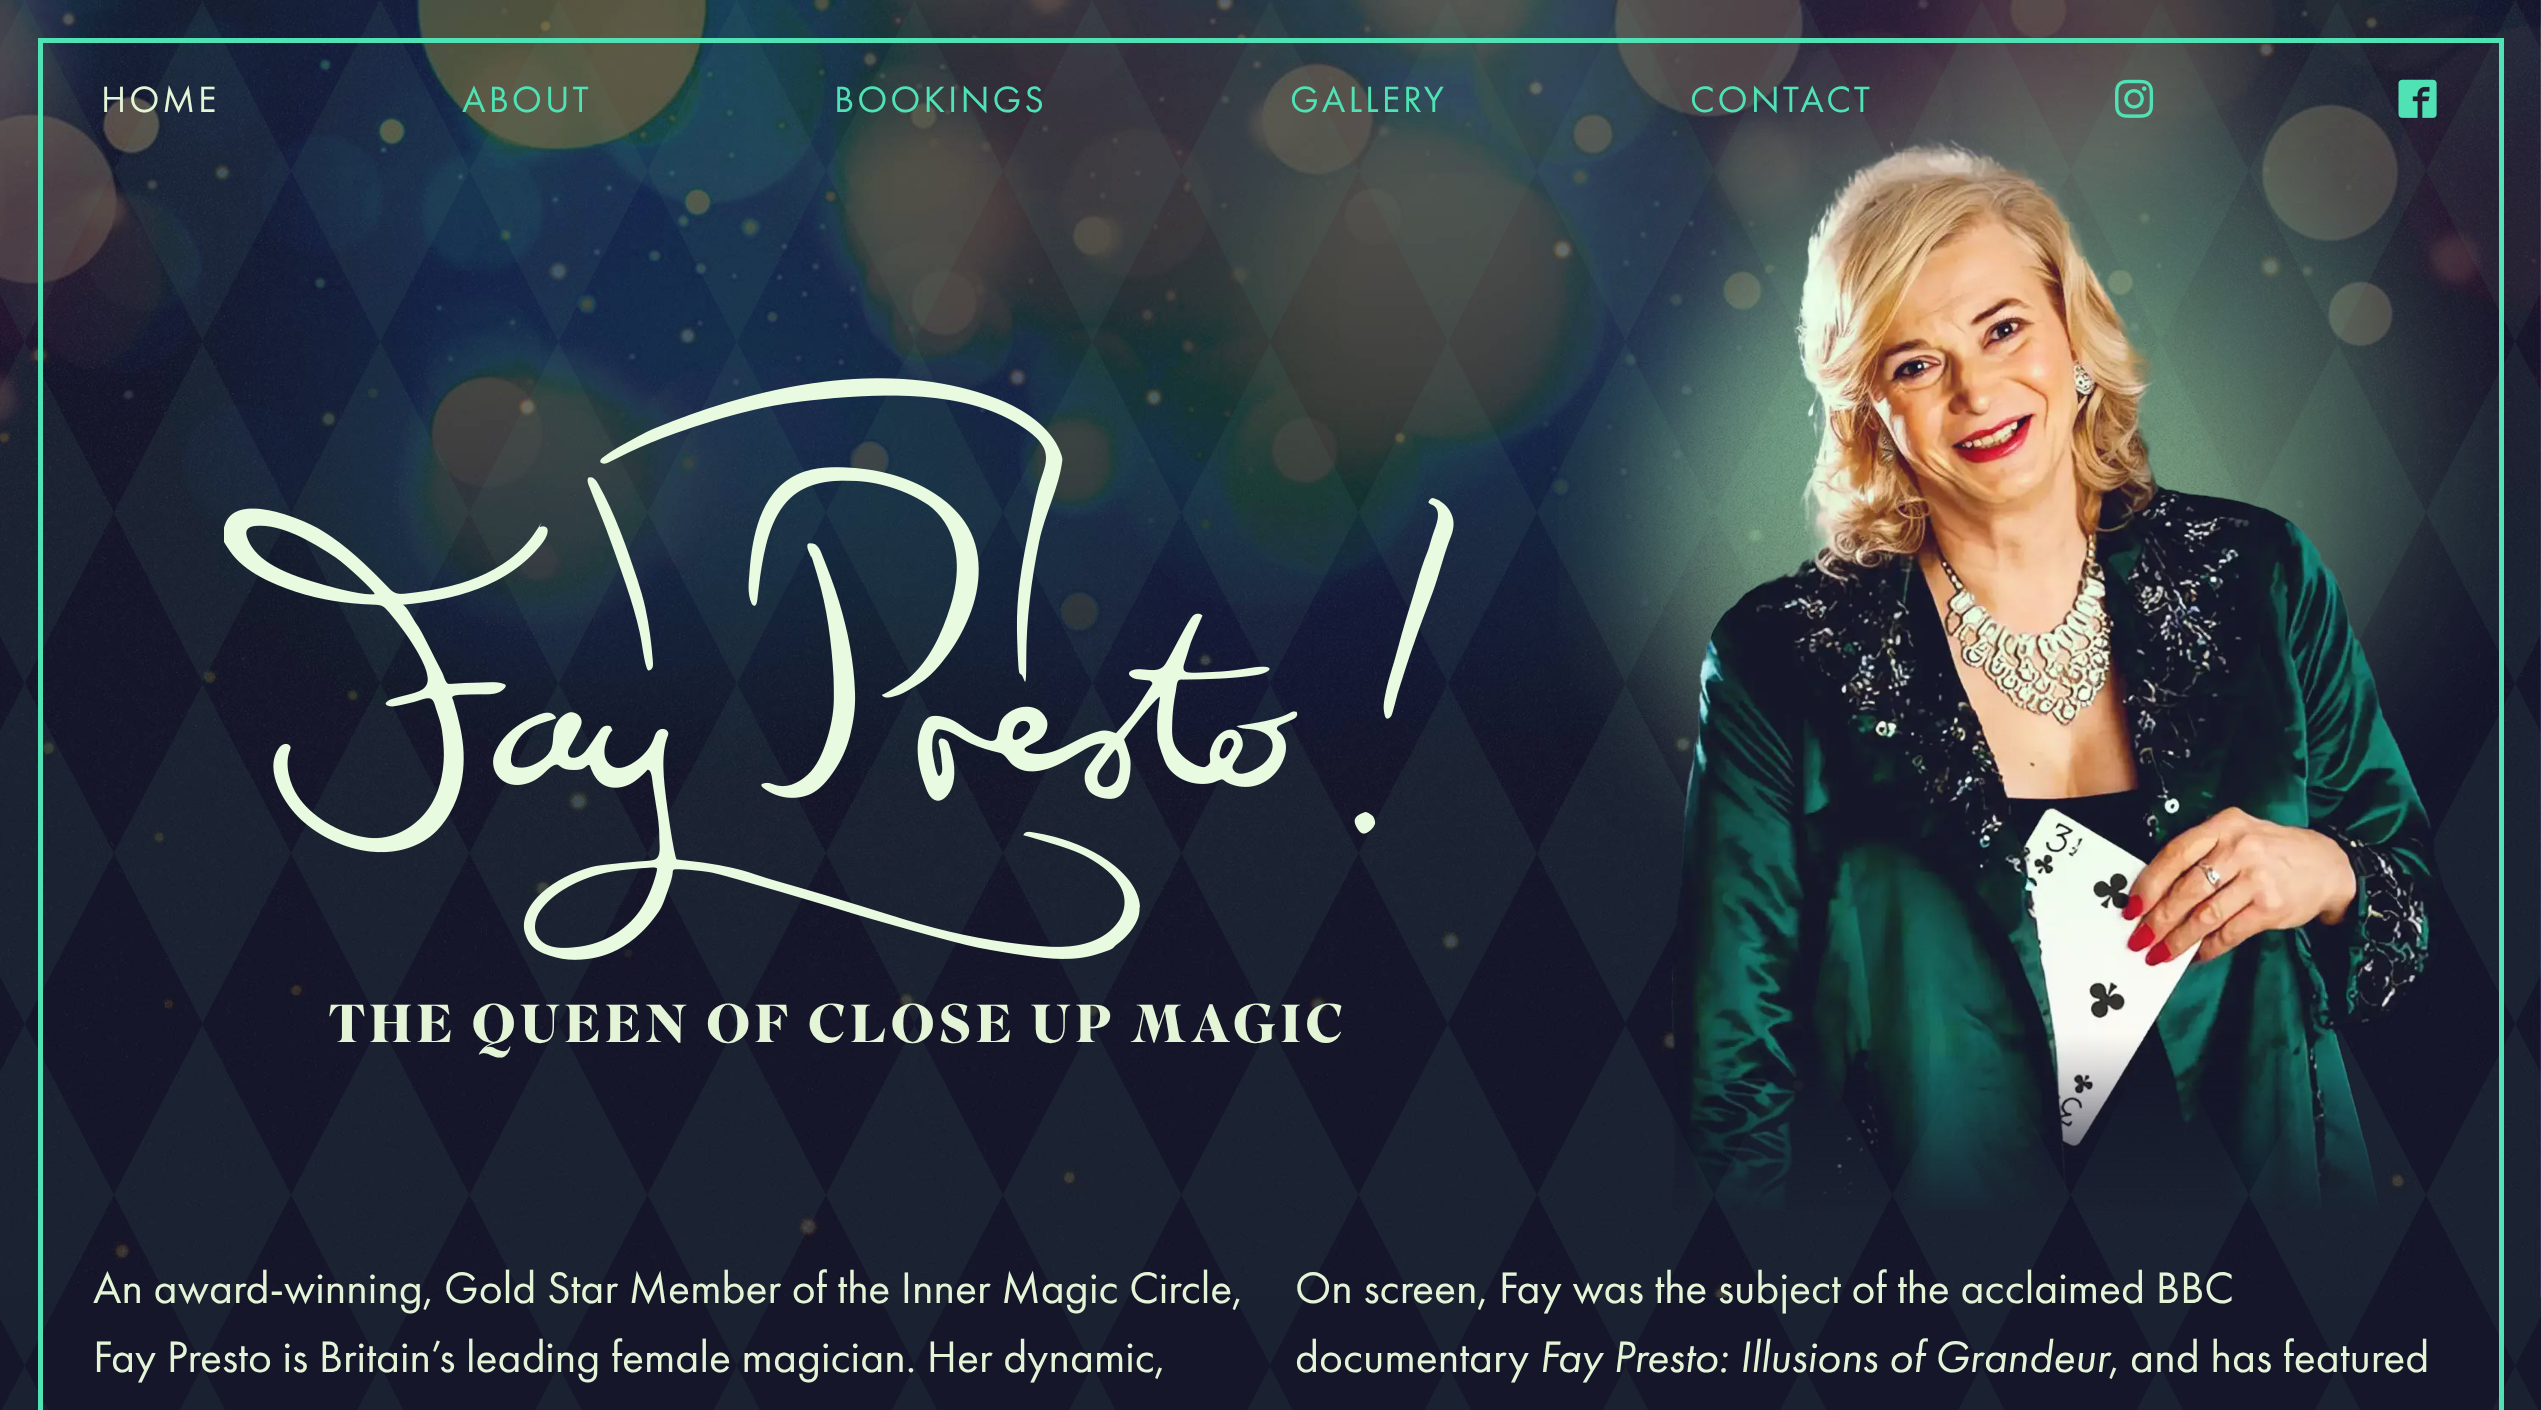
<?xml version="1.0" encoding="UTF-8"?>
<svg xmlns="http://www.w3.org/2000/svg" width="2541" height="1410">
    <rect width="100%" height="100%" fill="#151629"/>
    <image x="0" y="0" width="2541" height="1410" href="img_01.png"/>
    <image x="1558" y="43" width="941" height="788" href="img_02.png"/>
    <rect x="40.5" y="40.5" width="2461" height="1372" fill="none" stroke="#50E2B5" stroke-width="5"/>
    <text x="101" y="112" font-family="Futura PT" font-size="38" letter-spacing="3" fill="#E3F4D7">HOME</text>
    <text x="462" y="112" font-family="Futura PT" font-size="38" letter-spacing="3" fill="#50E2B5">ABOUT</text>
    <text x="834" y="112" font-family="Futura PT" font-size="38" letter-spacing="3" fill="#50E2B5">BOOKINGS</text>
    <text x="1290" y="112" font-family="Futura PT" font-size="38" letter-spacing="3" fill="#50E2B5">GALLERY</text>
    <text x="1690" y="112" font-family="Futura PT" font-size="38" letter-spacing="3" fill="#50E2B5">CONTACT</text>
    <image x="2115" y="79" width="39" height="39" href="img_03.png"/>
    <image x="2398" y="79" width="39" height="39" href="img_04.png"/>
    <image x="224" y="378" width="1230" height="582" href="img_05.png"/>
    <text x="329" y="1042" font-family="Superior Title" font-size="53.4" font-weight="700" letter-spacing="4.5" fill="#E3F4D7">THE QUEEN OF CLOSE UP MAGIC</text>
    <image x="1671" y="137" width="772" height="1073" href="img_06.png"/>
    <text font-family="Futura PT" font-size="45.75" fill="#E3F4D7">
        <tspan x="93" y="1303">An award-winning, Gold Star Member of the Inner Magic Circle,</tspan>
        <tspan x="93" y="1372">Fay Presto is Britain’s leading female magician. Her dynamic,</tspan>
    </text>
    <text font-family="Futura PT" font-size="45.75" fill="#E3F4D7">
        <tspan x="1295" y="1303">On screen, Fay was the subject of the acclaimed BBC</tspan>
        <tspan x="1295" y="1372">documentary</tspan>
    </text>
    <text x="1539" y="1372" font-family="Futura PT" font-size="45.75" font-style="italic" fill="#E3F4D7">Fay Presto: Illusions of Grandeur</text>
    <text x="2109" y="1372" font-family="Futura PT" font-size="45.75" fill="#E3F4D7">, and has featured</text>
</svg>
